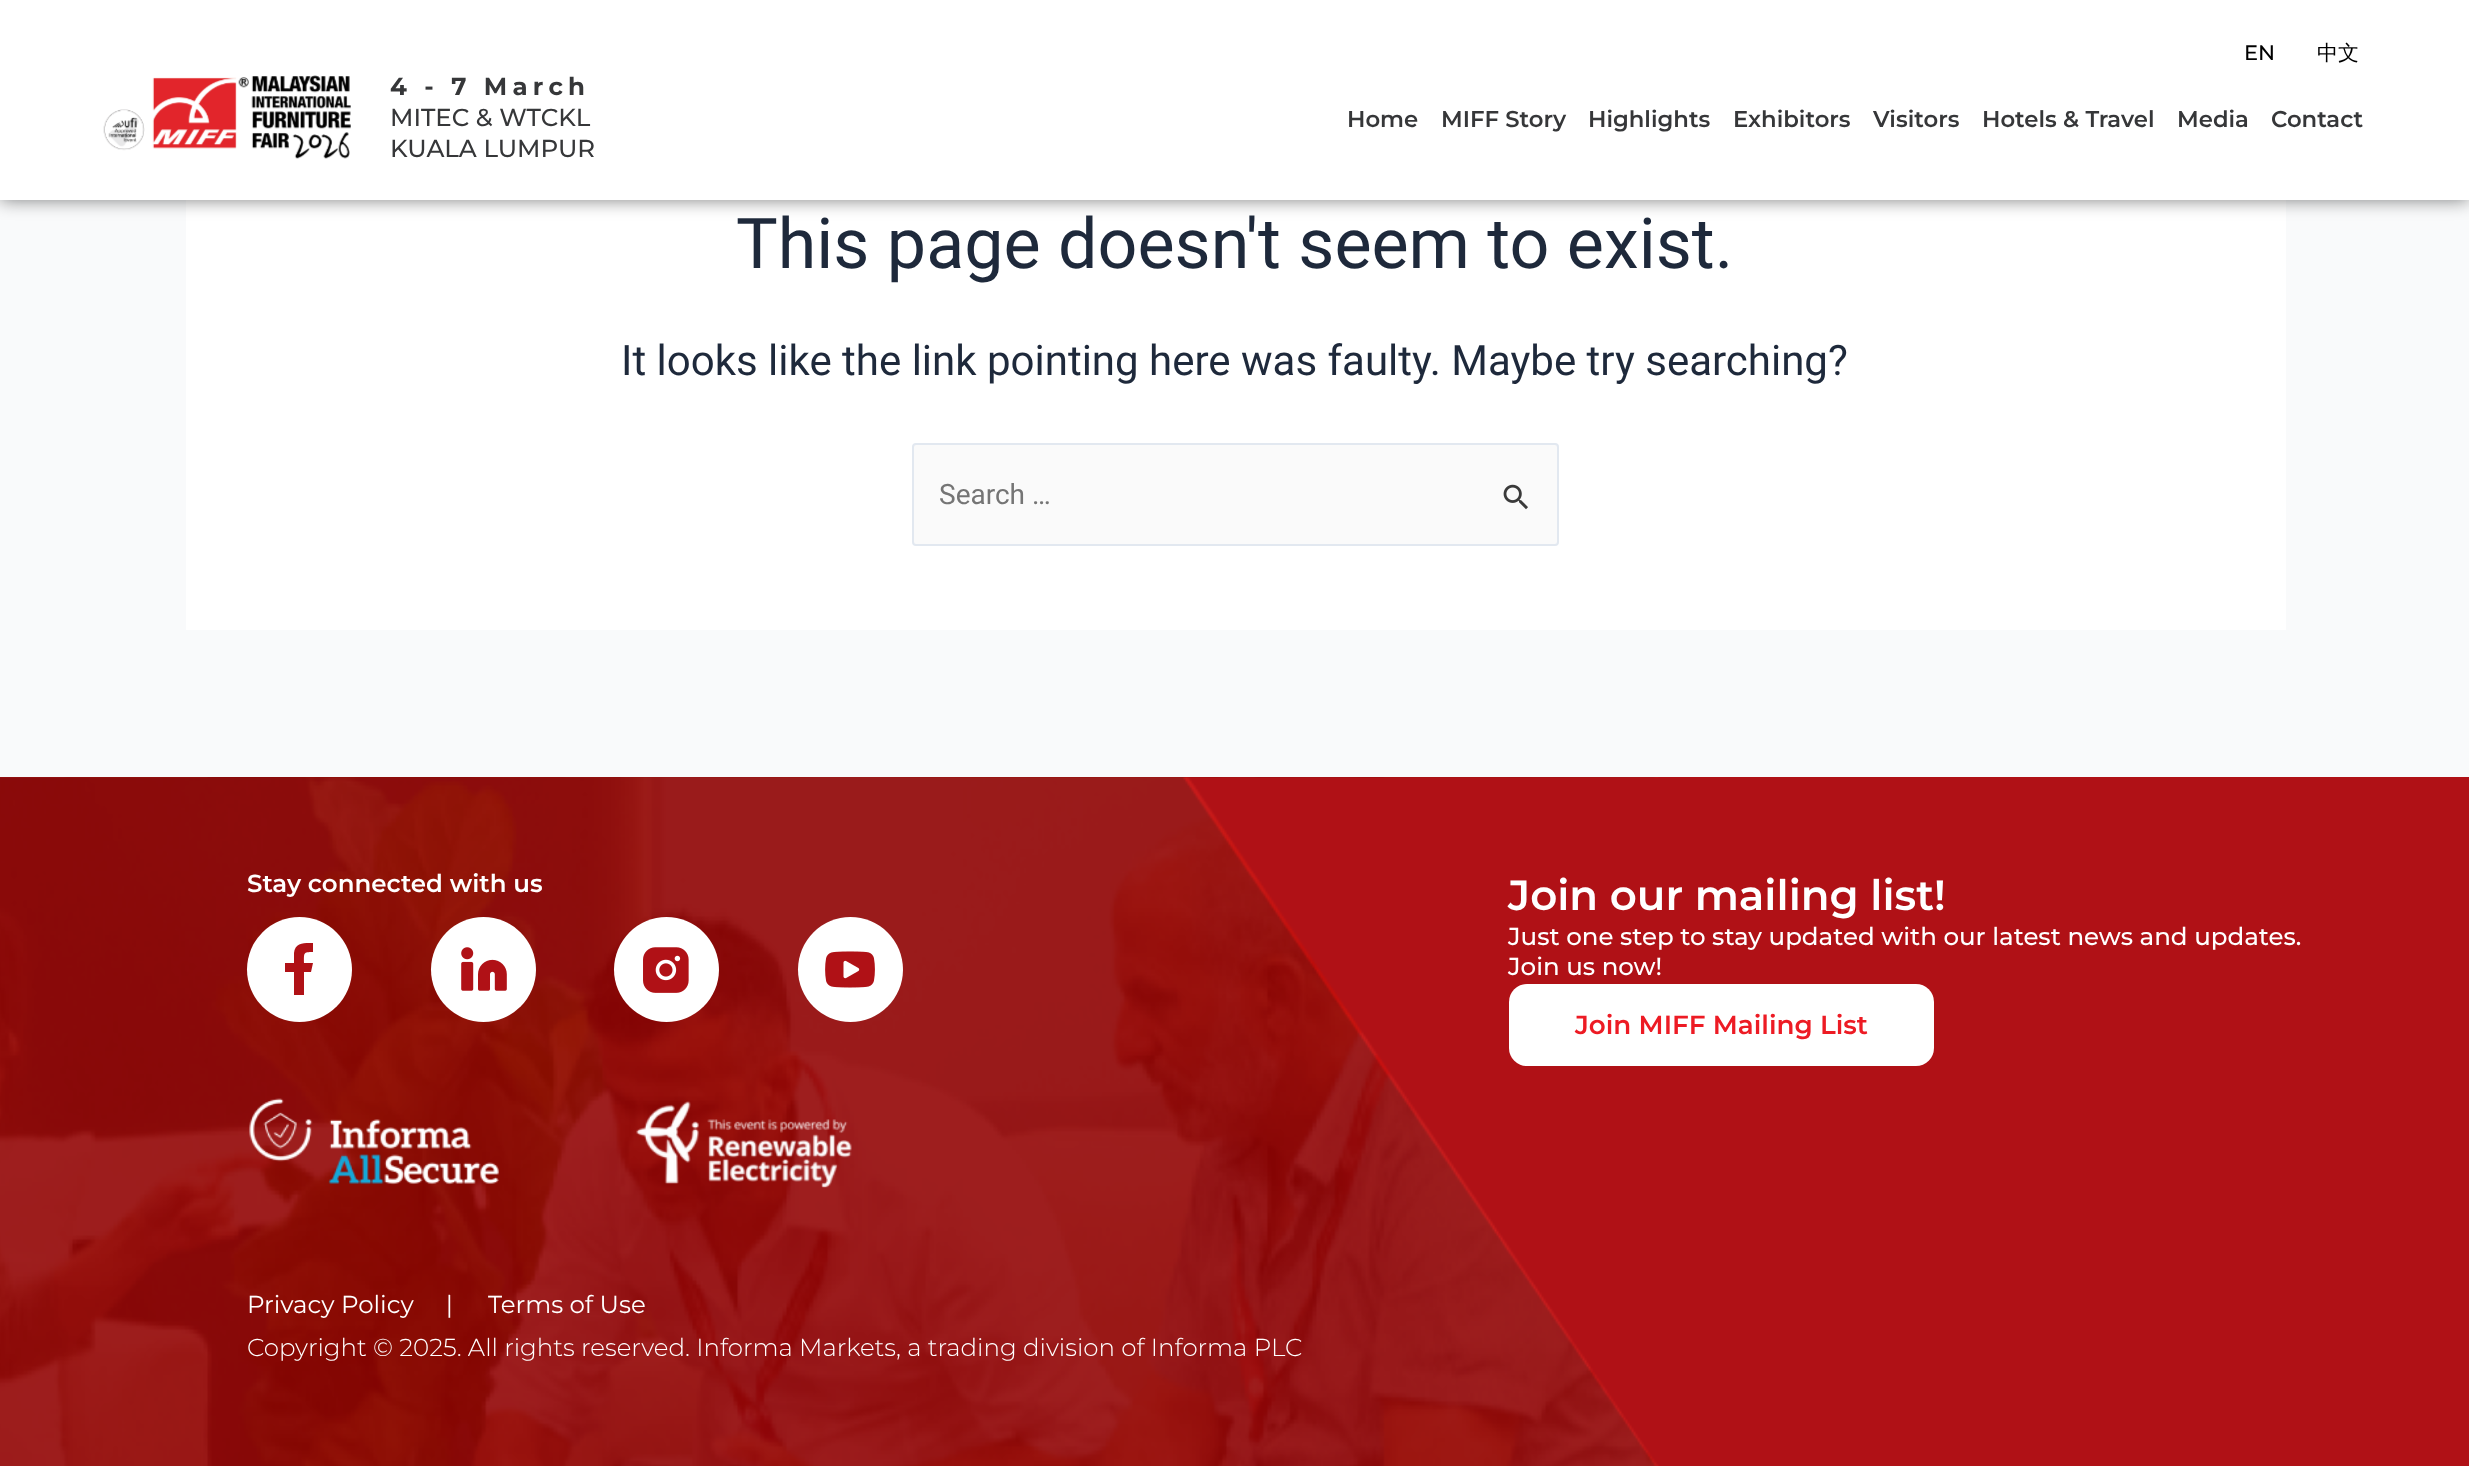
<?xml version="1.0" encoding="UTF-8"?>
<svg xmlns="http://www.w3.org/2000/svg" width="2469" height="1466">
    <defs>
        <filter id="blur1" x="-50%" y="-200%" width="200%" height="500%"><feGaussianBlur stdDeviation="9"/></filter>
    </defs>
    <rect width="100%" height="100%" fill="#F9FAFB"/>
    <rect x="186" y="200" width="2100" height="430" fill="#FFFFFF"/>
    <rect x="0" y="-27" width="2469" height="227" fill="#000000" fill-opacity="0.5" filter="url(#blur1)"/>
    <rect x="0" y="0" width="2469" height="200" fill="#FFFFFF"/>
    <text x="2244" y="60" font-family="Montserrat" font-size="21" font-weight="500" fill="#000000">EN</text>
    <text x="2317" y="60" font-family="WenQuanYi Zen Hei" font-size="21" font-weight="500" fill="#000000">中文</text>
    <image x="103" y="75" width="248" height="84" href="img_01.png"/>
    <text x="390" y="95" font-family="Montserrat" font-size="24.5" font-weight="700" letter-spacing="5.25" fill="#363739">4 - 7 March</text>
    <text font-family="Montserrat" font-size="24.5" font-weight="500" fill="#363739">
        <tspan x="390" y="126">MITEC &amp; WTCKL</tspan>
        <tspan x="390" y="157">KUALA LUMPUR</tspan>
    </text>
    <text x="1347" y="127" font-family="Montserrat" font-size="22.75" font-weight="600" fill="#363739">Home</text>
    <text x="1441" y="127" font-family="Montserrat" font-size="22.75" font-weight="600" fill="#363739">MIFF Story</text>
    <text x="1588" y="127" font-family="Montserrat" font-size="22.75" font-weight="600" fill="#363739">Highlights</text>
    <text x="1733" y="127" font-family="Montserrat" font-size="22.75" font-weight="600" fill="#363739">Exhibitors</text>
    <text x="1873" y="127" font-family="Montserrat" font-size="22.75" font-weight="600" fill="#363739">Visitors</text>
    <text x="1982" y="127" font-family="Montserrat" font-size="22.75" font-weight="600" fill="#363739">Hotels &amp; Travel</text>
    <text x="2177" y="127" font-family="Montserrat" font-size="22.75" font-weight="600" fill="#363739">Media</text>
    <text x="2271" y="127" font-family="Montserrat" font-size="22.75" font-weight="600" fill="#363739">Contact</text>
    <text x="736" y="268" font-family="Roboto" font-size="70" fill="#1E293B">This page doesn't seem to exist.</text>
    <text x="621" y="375" font-family="Roboto" font-size="42" fill="#1E293B">It looks like the link pointing here was faulty. Maybe try searching?</text>
    <rect x="913" y="444" width="645" height="101" rx="3" fill="#FAFAFA" stroke="#E2E8F0" stroke-width="2"/>
    <text x="939" y="504" font-family="Roboto" font-size="28" fill="#757575">Search …</text>
    <image x="1503" y="484" width="25" height="26" href="img_02.png"/>
    <image x="0" y="777" width="2469" height="689" href="img_03.png"/>
    <text x="247" y="892" font-family="Montserrat" font-size="24.5" font-weight="600" fill="#FFFFFF">Stay connected with us</text>
    <circle cx="299.5" cy="969.5" r="52.5" fill="#FFFFFF"/>
    <path d="M 311 972 H 304 V 995 H 294 V 972 H 285 V 963 H 294 V 953 C 295 942 305 943 313 943 V 952 C 303 952 304 953 304 963 H 313 Z" fill="#B01116"/>
    <circle cx="483.5" cy="969.5" r="52.5" fill="#FFFFFF"/>
    <image x="461" y="947" width="46" height="44" href="img_04.png"/>
    <circle cx="666.5" cy="969.5" r="52.5" fill="#FFFFFF"/>
    <image x="643" y="947" width="46" height="46" href="img_05.png"/>
    <circle cx="850.5" cy="969.5" r="52.5" fill="#FFFFFF"/>
    <image x="825" y="951" width="50" height="37" href="img_06.png"/>
    <image x="249" y="1098" width="250" height="87" href="img_07.png"/>
    <image x="636" y="1101" width="216" height="87" href="img_08.png"/>
    <text x="247" y="1313" font-family="Montserrat" font-size="24.5" fill="#FFFFFF" xml:space="preserve">Privacy Policy     |</text>
    <text x="488" y="1313" font-family="Montserrat" font-size="24.5" fill="#FFFFFF">Terms of Use</text>
    <text x="247" y="1356" font-family="Montserrat" font-size="24.5" font-weight="300" fill="#FFFFFF">Copyright © 2025. All rights reserved. Informa Markets, a trading division of Informa PLC</text>
    <text x="1508" y="910" font-family="Montserrat" font-size="42" font-weight="600" fill="#FFFFFF">Join our mailing list!</text>
    <text font-family="Montserrat" font-size="24.5" font-weight="500" fill="#FFFFFF">
        <tspan x="1508" y="945">Just one step to stay updated with our latest news and updates.</tspan>
        <tspan x="1508" y="975">Join us now!</tspan>
    </text>
    <rect x="1509" y="984" width="425" height="82" rx="18" fill="#FFFFFF"/>
    <text x="1575" y="1034" font-family="Montserrat" font-size="26.25" font-weight="600" fill="#ED1B24">Join MIFF Mailing List</text>
</svg>
